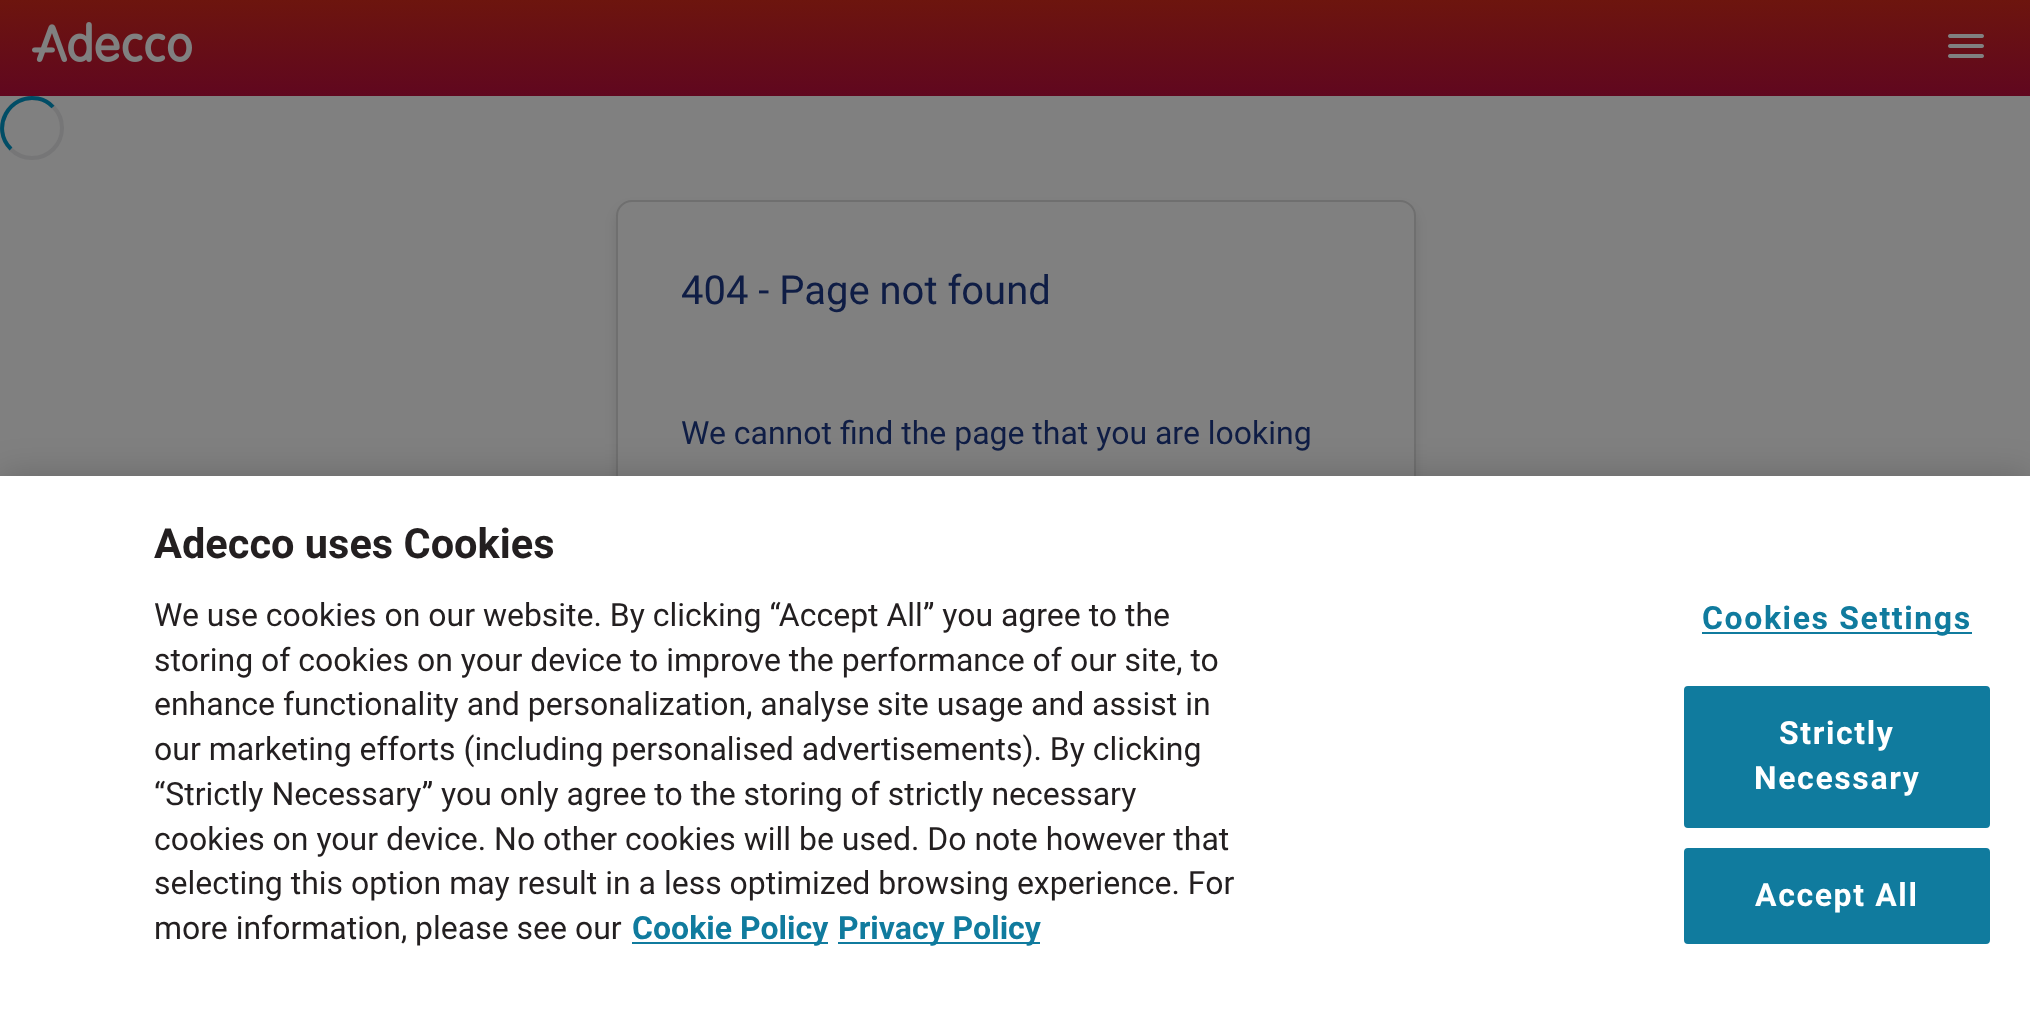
<?xml version="1.0" encoding="UTF-8"?>
<svg xmlns="http://www.w3.org/2000/svg" width="2030" height="1031">
    <defs>
        <linearGradient id="g1" gradientUnits="userSpaceOnUse" x1="1015" y1="0" x2="1015" y2="96"><stop offset="0" stop-color="#6D150E"/><stop offset="1" stop-color="#60071F"/></linearGradient>
        <filter id="blur1" x="-50%" y="-200%" width="200%" height="500%"><feGaussianBlur stdDeviation="6"/></filter>
        <filter id="blur2" x="-50%" y="-200%" width="200%" height="500%"><feGaussianBlur stdDeviation="18"/></filter>
    </defs>
    <rect width="100%" height="100%" fill="#808080"/>
    <circle cx="32" cy="128" r="30" fill="none" stroke="#767677" stroke-width="4"/>
    <path d="M 11 149 C -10 128.5 9 93 38 98.5 C 43.5 99.5 49 102.5 53 107" fill="none" stroke="#004D66" stroke-width="4"/>
    <rect x="0" y="0" width="2030" height="96" fill="url(#g1)"/>
    <image x="32" y="22" width="160" height="40" href="img_01.png"/>
    <image x="1948" y="34" width="36" height="24" href="img_02.png"/>
    <rect x="616" y="208" width="800" height="628" rx="16" fill="#000000" fill-opacity="0.1" filter="url(#blur1)"/>
    <rect x="617" y="201" width="798" height="626" rx="15" fill="#808080" stroke="#6F6F6F" stroke-width="2"/>
    <text x="681" y="304" font-family="Roboto" font-size="40" fill="#0F1D45">404 - Page not found</text>
    <text x="681" y="444" font-family="Roboto" font-size="32" fill="#0F1D45">We cannot find the page that you are looking</text>
    <rect x="0" y="476" width="2030" height="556" fill="#000000" fill-opacity="0.2" filter="url(#blur2)"/>
    <rect x="0" y="476" width="2030" height="555" fill="#FFFFFF"/>
    <text x="154" y="558" font-family="Roboto" font-size="41.5" font-weight="700" fill="#231F20">Adecco uses Cookies</text>
    <text font-family="Roboto" font-size="32" fill="#231F20">
        <tspan x="154" y="626">We use cookies on our website. By clicking “Accept All” you agree to the</tspan>
        <tspan x="154" y="671">storing of cookies on your device to improve the performance of our site, to</tspan>
        <tspan x="154" y="715">enhance functionality and personalization, analyse site usage and assist in</tspan>
        <tspan x="154" y="760">our marketing efforts (including personalised advertisements). By clicking</tspan>
        <tspan x="154" y="805">“Strictly Necessary” you only agree to the storing of strictly necessary</tspan>
        <tspan x="154" y="850">cookies on your device. No other cookies will be used. Do note however that</tspan>
        <tspan x="154" y="894">selecting this option may result in a less optimized browsing experience. For</tspan>
        <tspan x="154" y="939">more information, please see our</tspan>
    </text>
    <rect x="632" y="942" width="196" height="2" fill="#107B9E"/>
    <text x="632" y="939" font-family="Roboto" font-size="32" font-weight="700" fill="#107B9E">Cookie Policy</text>
    <rect x="838" y="942" width="202" height="2" fill="#107B9E"/>
    <text x="838" y="939" font-family="Roboto" font-size="32" font-weight="700" fill="#107B9E">Privacy Policy</text>
    <rect x="1702" y="632" width="270" height="2" fill="#107B9E"/>
    <text x="1702" y="629" font-family="Roboto" font-size="32" font-weight="700" letter-spacing="1.6" fill="#107B9E">Cookies Settings</text>
    <rect x="1685" y="687" width="304" height="140" rx="3" fill="#107B9E" stroke="#107B9E" stroke-width="2"/>
    <text x="1779" y="744" font-family="Roboto" font-size="32" font-weight="700" letter-spacing="1.6" fill="#FFFFFF">Strictly</text>
    <text x="1754" y="789" font-family="Roboto" font-size="32" font-weight="700" letter-spacing="1.6" fill="#FFFFFF">Necessary</text>
    <rect x="1685" y="849" width="304" height="94" rx="3" fill="#107B9E" stroke="#107B9E" stroke-width="2"/>
    <text x="1755" y="906" font-family="Roboto" font-size="32" font-weight="700" letter-spacing="1.6" fill="#FFFFFF">Accept All</text>
</svg>
